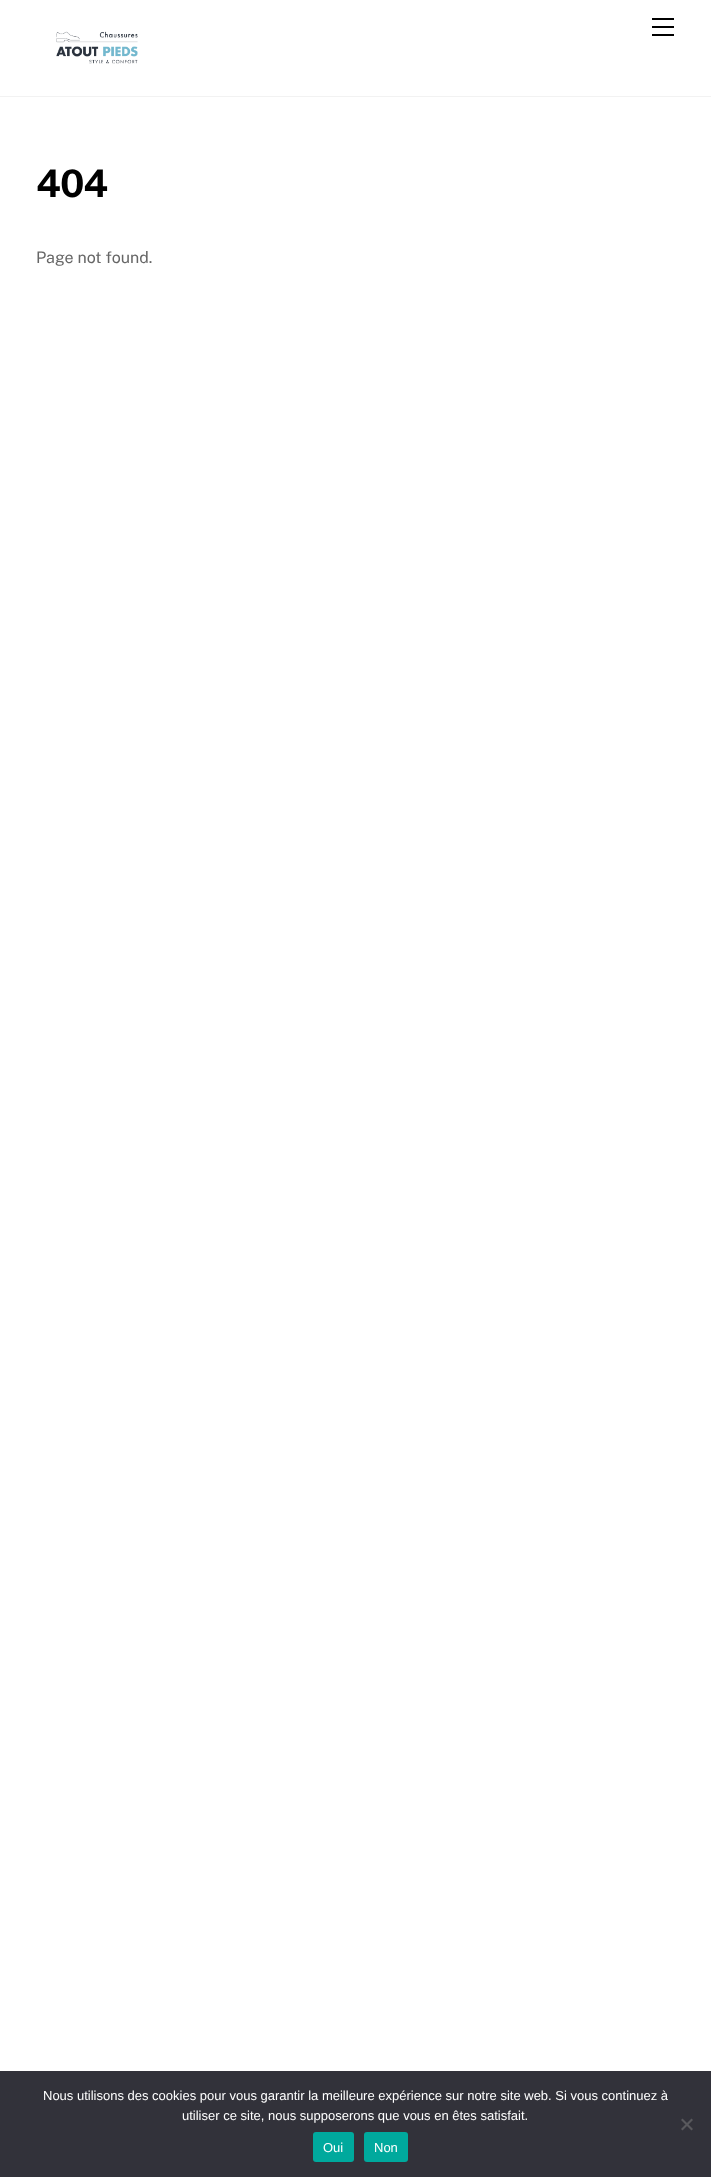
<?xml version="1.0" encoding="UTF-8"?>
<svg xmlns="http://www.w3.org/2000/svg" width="711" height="2177">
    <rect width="100%" height="100%" fill="#FFFFFF"/>
    <rect x="0" y="96" width="711" height="1" fill="#F2F2F2"/>
    <rect x="652" y="34" width="22" height="2" fill="#000000"/>
    <rect x="652" y="18" width="22" height="2" fill="#000000"/>
    <rect x="652" y="26" width="22" height="2" fill="#000000"/>
    <image x="56" y="31" width="82" height="33" href="img_01.png"/>
    <text x="36" y="197" font-family="Public Sans" font-size="38" font-weight="700" letter-spacing="-1" fill="#000000">404</text>
    <text x="36" y="263" font-family="Public Sans" font-size="16" fill="#666666">Page not found.</text>
    <rect x="0" y="2071" width="711" height="106" fill="#32323A"/>
    <text x="43" y="2100" font-family="Liberation Sans" font-size="13" fill="#FFFFFF">Nous utilisons des cookies pour vous garantir la meilleure expérience sur notre site web. Si vous continuez à</text>
    <text x="182" y="2120" font-family="Liberation Sans" font-size="13" fill="#FFFFFF">utiliser ce site, nous supposerons que vous en êtes satisfait.</text>
    <path d="M 691.5 2118.5 L 693 2120 L 682.5 2130.5 L 681 2129 Z" fill="#59595D"/>
    <path d="M 681 2120 L 682.5 2118.5 L 693 2129 L 691.5 2130.5 Z" fill="#59595D"/>
    <rect x="313" y="2132" width="41" height="30" rx="3" fill="#00A99D"/>
    <text x="323" y="2152" font-family="Liberation Sans" font-size="13" fill="#FFFFFF">Oui</text>
    <rect x="364" y="2132" width="44" height="30" rx="3" fill="#00A99D"/>
    <text x="374" y="2152" font-family="Liberation Sans" font-size="13" fill="#FFFFFF">Non</text>
</svg>
